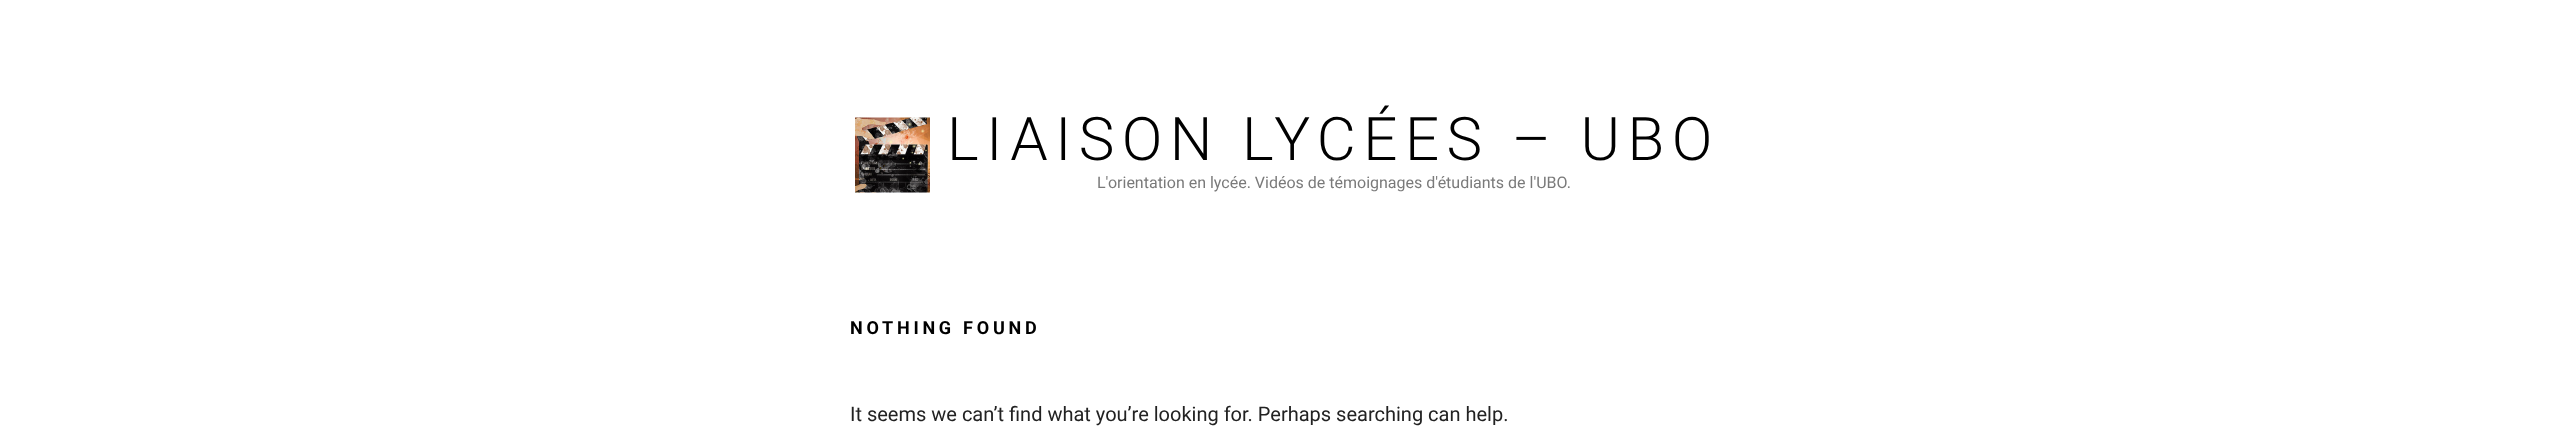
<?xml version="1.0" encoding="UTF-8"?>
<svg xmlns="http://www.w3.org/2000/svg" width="2574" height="427">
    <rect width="100%" height="100%" fill="#FFFFFF"/>
    <image x="855" y="117" width="75" height="76" href="img_01.png"/>
    <text x="947" y="160" font-family="Roboto" font-size="60" font-weight="300" letter-spacing="7.5" fill="#000000">LIAISON LYCÉES – UBO</text>
    <text x="1097" y="188" font-family="Roboto" font-size="16" fill="#7A7A7A">L'orientation en lycée. Vidéos de témoignages d'étudiants de l'UBO.</text>
    <text x="850" y="334" font-family="Roboto" font-size="18" font-weight="700" letter-spacing="3.75" fill="#000000">NOTHING FOUND</text>
    <text x="850" y="421" font-family="Roboto" font-size="20" fill="#222222">It seems we can’t find what you’re looking for. Perhaps searching can help.</text>
</svg>
